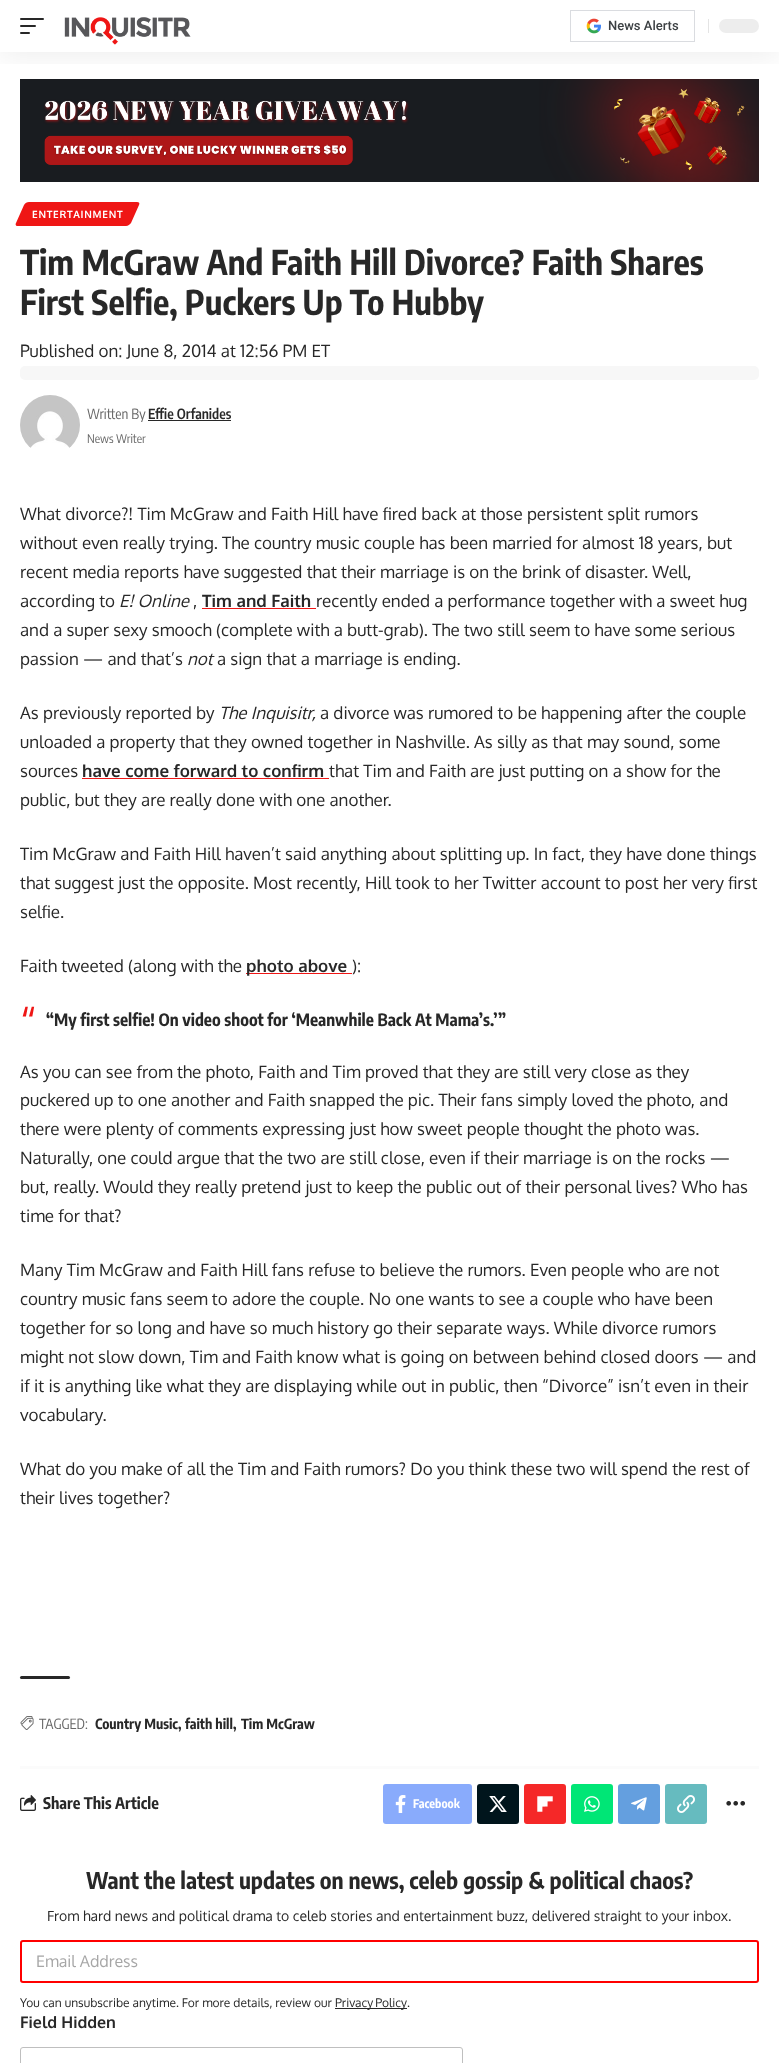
<?xml version="1.0" encoding="UTF-8"?>
<svg xmlns="http://www.w3.org/2000/svg" width="779" height="2063">
    <defs>
        <clipPath id="clip1"><rect x="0" y="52" width="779" height="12"/></clipPath>
        <filter id="blur1" x="-50%" y="-200%" width="200%" height="500%"><feGaussianBlur stdDeviation="15"/></filter>
    </defs>
    <rect width="100%" height="100%" fill="#FFFFFF"/>
    <image x="20" y="79" width="739" height="103" href="img_03.png"/>
    <g clip-path="url(#clip1)">
        <rect x="0" y="4" width="779" height="52" fill="#000000" fill-opacity="0.07" filter="url(#blur1)"/>
    </g>
    <rect x="20" y="18" width="24" height="2" rx="1" fill="#282828"/>
    <rect x="20" y="25" width="16" height="2" rx="1" fill="#282828"/>
    <rect x="20" y="32" width="10" height="2" rx="1" fill="#282828"/>
    <image x="64" y="17" width="127" height="28" href="img_01.png"/>
    <rect x="570.5" y="10.5" width="124" height="31" fill="none" stroke="#DADCE0"/>
    <image x="586" y="18" width="15" height="16" href="img_02.png"/>
    <text x="608" y="30" font-family="Roboto" font-size="13" font-weight="500" fill="#3C4043">News Alerts</text>
    <rect x="708" y="19" width="1" height="14" fill="#E4E4E4"/>
    <rect x="719" y="19" width="40" height="14" rx="7" fill="#EDEDED"/>
    <path d="M 29 202 H 137 C 139 202 140 203 139 205 L 131 223 C 130 224 128 226 126 226 H 17 C 16 226 15 224 16 223 L 24 205 C 25 203 27 202 29 202 Z" fill="#EF1615"/>
    <text x="32" y="218" font-family="Oxygen" font-size="10" font-weight="700" letter-spacing="0.75" fill="#FFFFFF">ENTERTAINMENT</text>
    <text font-family="Encode Sans Condensed" font-size="34" font-weight="700" fill="#282828">
        <tspan x="20" y="275">Tim McGraw And Faith Hill Divorce? Faith Shares</tspan>
        <tspan x="20" y="315">First Selfie, Puckers Up To Hubby</tspan>
    </text>
    <text x="20" y="357" font-family="Oxygen" font-size="17" fill="#282828">Published on: June 8, 2014 at 12:56 PM ET</text>
    <rect x="20" y="366" width="739" height="14" rx="5" fill="#F7F7F7"/>
    <image x="20" y="395" width="60" height="53" href="img_04.png"/>
    <text x="87" y="419" font-family="Encode Sans Condensed" font-size="14" fill="#666666">Written By</text>
    <text x="148" y="419" font-family="Encode Sans Condensed" font-size="14" font-weight="600" fill="#282828">Effie Orfanides</text>
    <rect x="148" y="420" width="83" height="1" fill="#282828"/>
    <text x="87" y="443" font-family="Encode Sans Condensed" font-size="12" fill="#666666">News Writer</text>
    <text font-family="Oxygen" font-size="17" fill="#282828">
        <tspan x="20" y="520">What divorce?! Tim McGraw and Faith Hill have fired back at those persistent split rumors</tspan>
        <tspan x="20" y="549">without even really trying. The country music couple has been married for almost 18 years, but</tspan>
        <tspan x="20" y="578">recent media reports have suggested that their marriage is on the brink of disaster. Well,</tspan>
        <tspan x="20" y="607">according to</tspan>
    </text>
    <text x="119" y="607" font-family="Oxygen" font-size="17" font-style="italic" fill="#282828">E! Online</text>
    <text x="193" y="607" font-family="Oxygen" font-size="17" fill="#282828">,</text>
    <text x="202" y="607" font-family="Oxygen" font-size="17" font-weight="700" fill="#282828">Tim and Faith</text>
    <rect x="202" y="608" width="114" height="1" fill="#EF1615"/>
    <text x="316" y="607" font-family="Oxygen" font-size="17" fill="#282828">recently ended a performance together with a sweet hug</text>
    <text font-family="Oxygen" font-size="17" fill="#282828">
        <tspan x="20" y="636">and a super sexy smooch (complete with a butt-grab). The two still seem to have some serious</tspan>
        <tspan x="20" y="665">passion — and that’s</tspan>
    </text>
    <text x="187" y="665" font-family="Oxygen" font-size="17" font-style="italic" fill="#282828">not</text>
    <text x="217" y="665" font-family="Oxygen" font-size="17" fill="#282828">a sign that a marriage is ending.</text>
    <text x="20" y="719" font-family="Oxygen" font-size="17" fill="#282828">As previously reported by</text>
    <text x="219" y="719" font-family="Oxygen" font-size="17" font-style="italic" fill="#282828">The Inquisitr,</text>
    <text x="320" y="719" font-family="Oxygen" font-size="17" fill="#282828">a divorce was rumored to be happening after the couple</text>
    <text font-family="Oxygen" font-size="17" fill="#282828">
        <tspan x="20" y="748">unloaded a property that they owned together in Nashville. As silly as that may sound, some</tspan>
        <tspan x="20" y="777">sources</tspan>
    </text>
    <text x="82" y="777" font-family="Oxygen" font-size="17" font-weight="700" fill="#282828">have come forward to confirm</text>
    <rect x="82" y="778" width="247" height="1" fill="#EF1615"/>
    <text x="329" y="777" font-family="Oxygen" font-size="17" fill="#282828">that Tim and Faith are just putting on a show for the</text>
    <text x="20" y="806" font-family="Oxygen" font-size="17" fill="#282828">public, but they are really done with one another.</text>
    <text font-family="Oxygen" font-size="17" fill="#282828">
        <tspan x="20" y="860">Tim McGraw and Faith Hill haven’t said anything about splitting up. In fact, they have done things</tspan>
        <tspan x="20" y="889">that suggest just the opposite. Most recently, Hill took to her Twitter account to post her very first</tspan>
        <tspan x="20" y="918">selfie.</tspan>
    </text>
    <text x="20" y="972" font-family="Oxygen" font-size="17" fill="#282828">Faith tweeted (along with the</text>
    <rect x="246" y="973" width="106" height="1" fill="#EF1615"/>
    <text x="246" y="972" font-family="Oxygen" font-size="17" font-weight="700" fill="#282828">photo above</text>
    <text x="352" y="972" font-family="Oxygen" font-size="17" fill="#282828">):</text>
    <text x="20" y="1039" font-family="Oxygen" font-size="42" fill="#EF1615">“</text>
    <text x="46" y="1026" font-family="Encode Sans Condensed" font-size="17" font-weight="700" fill="#282828">“My first selfie! On video shoot for ‘Meanwhile Back At Mama’s.’”</text>
    <text font-family="Oxygen" font-size="17" fill="#282828">
        <tspan x="20" y="1078">As you can see from the photo, Faith and Tim proved that they are still very close as they</tspan>
        <tspan x="20" y="1106">puckered up to one another and Faith snapped the pic. Their fans simply loved the photo, and</tspan>
        <tspan x="20" y="1135">there were plenty of comments expressing just how sweet people thought the photo was.</tspan>
        <tspan x="20" y="1164">Naturally, one could argue that the two are still close, even if their marriage is on the rocks —</tspan>
        <tspan x="20" y="1193">but, really. Would they really pretend just to keep the public out of their personal lives? Who has</tspan>
        <tspan x="20" y="1222">time for that?</tspan>
    </text>
    <text font-family="Oxygen" font-size="17" fill="#282828">
        <tspan x="20" y="1276">Many Tim McGraw and Faith Hill fans refuse to believe the rumors. Even people who are not</tspan>
        <tspan x="20" y="1305">country music fans seem to adore the couple. No one wants to see a couple who have been</tspan>
        <tspan x="20" y="1334">together for so long and have so much history go their separate ways. While divorce rumors</tspan>
        <tspan x="20" y="1363">might not slow down, Tim and Faith know what is going on between behind closed doors — and</tspan>
        <tspan x="20" y="1392">if it is anything like what they are displaying while out in public, then “Divorce” isn’t even in their</tspan>
        <tspan x="20" y="1421">vocabulary.</tspan>
    </text>
    <text font-family="Oxygen" font-size="17" fill="#282828">
        <tspan x="20" y="1475">What do you make of all the Tim and Faith rumors? Do you think these two will spend the rest of</tspan>
        <tspan x="20" y="1504">their lives together?</tspan>
    </text>
    <rect x="20" y="1676" width="50" height="3" rx="1.5" fill="#282828"/>
    <image x="20" y="1716" width="14" height="14" href="img_05.png"/>
    <text x="39" y="1729" font-family="Encode Sans Condensed" font-size="14" fill="#666666">TAGGED:</text>
    <text x="95" y="1729" font-family="Encode Sans Condensed" font-size="14" font-weight="700" fill="#282828">Country Music,</text>
    <text x="185" y="1729" font-family="Encode Sans Condensed" font-size="14" font-weight="700" fill="#282828">faith hill,</text>
    <text x="241" y="1729" font-family="Encode Sans Condensed" font-size="14" font-weight="700" fill="#282828">Tim McGraw</text>
    <rect x="20" y="1766" width="739" height="3" fill="#FBFBFB"/>
    <image x="20" y="1795" width="16" height="16" href="img_06.png"/>
    <text x="43" y="1809" font-family="Encode Sans Condensed" font-size="16" font-weight="700" fill="#282828">Share This Article</text>
    <rect x="383" y="1784" width="89" height="40" rx="3" fill="#89ABFC"/>
    <image x="395" y="1795" width="11" height="18" href="img_07.png"/>
    <text x="413" y="1808" font-family="Encode Sans Condensed" font-size="12" font-weight="700" fill="#FFFFFF">Facebook</text>
    <rect x="477" y="1784" width="42" height="40" rx="3" fill="#00151C"/>
    <image x="489" y="1796" width="18" height="16" href="img_08.png"/>
    <rect x="524" y="1784" width="42" height="40" rx="3" fill="#F52828"/>
    <image x="537" y="1796" width="16" height="16" href="img_09.png"/>
    <rect x="571" y="1784" width="42" height="40" rx="3" fill="#00E676"/>
    <image x="584" y="1796" width="16" height="16" href="img_10.png"/>
    <rect x="618" y="1784" width="42" height="40" rx="3" fill="#649FDF"/>
    <image x="631" y="1797" width="16" height="14" href="img_11.png"/>
    <rect x="665" y="1784" width="42" height="40" rx="3" fill="#66BBBF"/>
    <image x="677" y="1795" width="18" height="18" href="img_12.png"/>
    <image x="726" y="1801" width="20" height="5" href="img_13.png"/>
    <text x="86" y="1889" font-family="Encode Sans Condensed" font-size="23" font-weight="700" fill="#282828">Want the latest updates on news, celeb gossip &amp; political chaos?</text>
    <text x="47" y="1921" font-family="Oxygen" font-size="14" fill="#282828">From hard news and political drama to celeb stories and entertainment buzz, delivered straight to your inbox.</text>
    <rect x="21" y="1941" width="737" height="41" rx="2" fill="none" stroke="#FF0000" stroke-width="2"/>
    <text x="36" y="1967" font-family="Oxygen" font-size="16" fill="#A6A6A6">Email Address</text>
    <text x="20" y="2007" font-family="Oxygen" font-size="12" fill="#282828">You can unsubscribe anytime. For more details, review our</text>
    <rect x="335" y="2008" width="72" height="1" fill="#282828"/>
    <text x="335" y="2007" word-spacing="-1" font-family="Oxygen" font-size="12" fill="#282828">Privacy Policy</text>
    <text x="407" y="2007" font-family="Oxygen" font-size="12" fill="#282828">.</text>
    <text x="20" y="2028" font-family="Oxygen" font-size="16" font-weight="700" fill="#282828">Field Hidden</text>
    <rect x="20.5" y="2047.5" width="442" height="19" rx="2.5" fill="none" stroke="#BFBFBF"/>
</svg>
